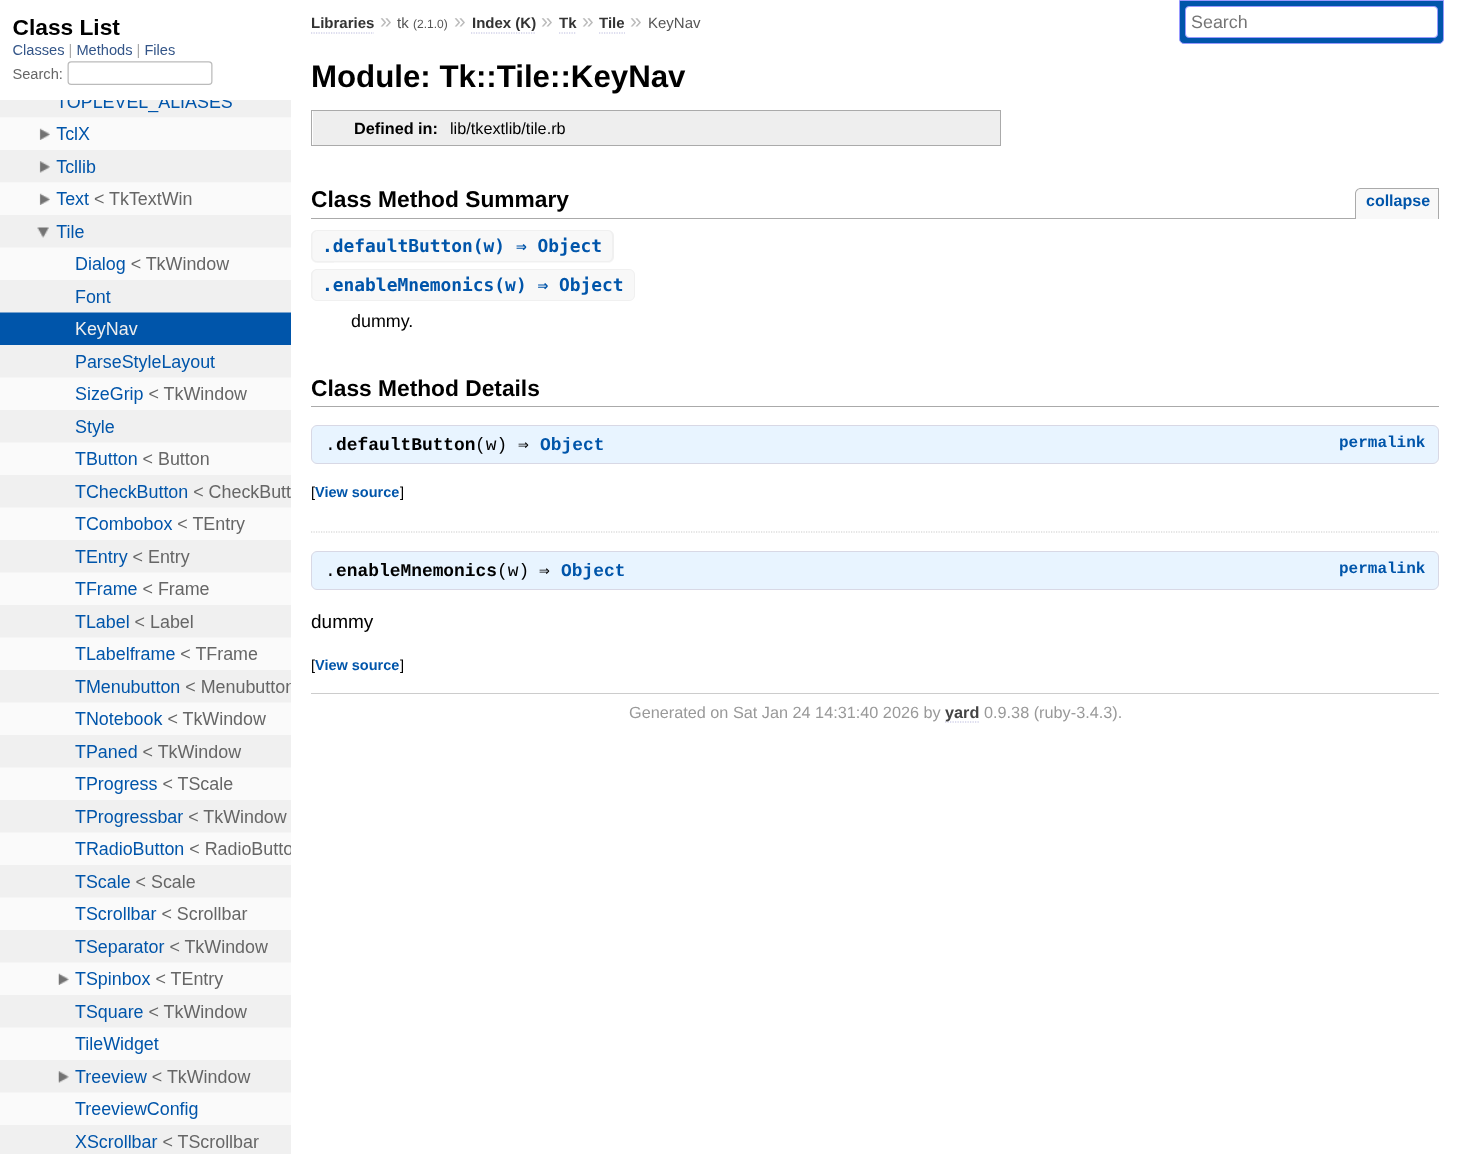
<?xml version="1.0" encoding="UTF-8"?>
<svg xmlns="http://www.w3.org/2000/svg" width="1458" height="1154">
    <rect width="100%" height="100%" fill="#FFFFFF"/>
    <image x="0" y="0" width="291" height="1154" href="img_01.png"/>
    <text x="311" y="28" font-family="Liberation Sans" font-size="15" font-weight="700" fill="#333333">Libraries</text>
    <path d="M 311 33 H 374" fill="none" stroke="#BBBBDD" stroke-width="1.2" stroke-dasharray="1.25 1.25"/>
    <text x="380" y="28" font-family="Liberation Sans" font-size="21" fill="#BBBBBB">»</text>
    <text x="397" y="28" font-family="Liberation Sans" font-size="15" fill="#555555">tk</text>
    <text x="413" y="28" font-family="Liberation Sans" font-size="12" fill="#555555">(2.1.0)</text>
    <text x="454" y="28" font-family="Liberation Sans" font-size="21" fill="#BBBBBB">»</text>
    <text x="472" y="28" font-family="Liberation Sans" font-size="15" font-weight="700" fill="#333333">Index (K)</text>
    <path d="M 471 33 H 535" fill="none" stroke="#BBBBDD" stroke-width="1.2" stroke-dasharray="1.25 1.25"/>
    <text x="541" y="28" font-family="Liberation Sans" font-size="21" fill="#BBBBBB">»</text>
    <text x="559" y="28" font-family="Liberation Sans" font-size="15" font-weight="700" fill="#333333">Tk</text>
    <path d="M 559 33 H 576" fill="none" stroke="#BBBBDD" stroke-width="1.2" stroke-dasharray="1.25 1.25"/>
    <text x="582" y="28" font-family="Liberation Sans" font-size="21" fill="#BBBBBB">»</text>
    <text x="599" y="28" font-family="Liberation Sans" font-size="15" font-weight="700" fill="#333333">Tile</text>
    <path d="M 599 33 H 625" fill="none" stroke="#BBBBDD" stroke-width="1.2" stroke-dasharray="1.25 1.25"/>
    <text x="630" y="28" font-family="Liberation Sans" font-size="21" fill="#BBBBBB">»</text>
    <text x="648" y="28" font-family="Liberation Sans" font-size="15" fill="#555555">KeyNav</text>
    <path d="M 1179.5 0.5 H 1443.5 V 39 C 1443.5 41.5 1441.5 43.5 1439 43.5 H 1184 C 1181.5 43.5 1179.5 41.5 1179.5 39 Z" fill="#0055AA" stroke="#9999FF"/>
    <rect x="1185.5" y="6.5" width="252" height="31" rx="3.5" fill="#FFFFFF" stroke="#9999FF"/>
    <text x="1191" y="28" font-family="Liberation Sans" font-size="17.9" fill="#757575">Search</text>
    <text x="311" y="87" font-family="Liberation Sans" font-size="31.25" font-weight="700" fill="#000000">Module: Tk::Tile::KeyNav</text>
    <rect x="313" y="111" width="687" height="34" fill="#EEEEEE"/>
    <rect x="311" y="110" width="690" height="1" fill="#AAAAAA"/>
    <rect x="311" y="145" width="139" height="1" fill="#AAAAAA"/>
    <rect x="311" y="110" width="1" height="36" fill="#AAAAAA"/>
    <text x="354" y="134" font-family="Liberation Sans" font-size="16.25" font-weight="700" fill="#000000">Defined in:</text>
    <rect x="1000" y="110" width="1" height="36" fill="#AAAAAA"/>
    <rect x="450" y="145" width="551" height="1" fill="#AAAAAA"/>
    <text x="450" y="134" font-family="Liberation Sans" font-size="16.25" fill="#000000">lib/tkextlib/tile.rb</text>
    <rect x="311" y="218" width="1044" height="1" fill="#AAAAAA"/>
    <text x="311" y="207" font-family="Liberation Sans" font-size="22.75" font-weight="700" fill="#000000">Class Method Summary</text>
    <path d="M 1361 188 H 1439 V 219 H 1355 V 194 C 1355 190.5 1357.5 188 1361 188 Z" fill="#F8F8F8"/>
    <path d="M 1361 188 H 1439 V 219 H 1355 V 194 C 1355 190 1358 188 1361 188 Z M 1361 189 H 1438 V 219 H 1356 V 194 C 1356 191 1358 189 1361 189 Z" fill="#AAAAAA" fill-rule="evenodd"/>
    <text x="1366" y="206" font-family="Liberation Sans" font-size="16" font-weight="700" fill="#0055AA">collapse</text>
    <path d="M 317 230 H 334 V 263 H 317 C 313.5 263 311 260.5 311 257 V 236 C 311 232.5 313.5 230 317 230 Z" fill="#F8F8F8"/>
    <path d="M 317.5 230 H 334 V 262.5 H 317.5 C 314 262.5 311 259.5 311 256 V 236 C 311 233 314 230 317.5 230 Z M 317.5 231 H 334 V 261 H 317.5 C 314.5 261 312.5 259 312.5 256 V 236 C 312.5 233.5 314.5 231 317.5 231 Z" fill="#F0F0F0" fill-rule="evenodd"/>
    <rect x="334" y="231" width="140" height="32" fill="#F8F8F8"/>
    <path d="M 474 230 H 608 C 611.5 230 614 232.5 614 236 V 257 C 614 260.5 611.5 263 608 263 H 474 Z" fill="#F8F8F8"/>
    <path d="M 474 230 H 608 C 611 230 614 233 614 236 V 256 C 614 260 611 262 608 262 H 474 Z M 474 231 H 608 C 610 231 612 233 612 236 V 256 C 612 259 610 261 608 261 H 474 Z" fill="#F0F0F0" fill-rule="evenodd"/>
    <text x="322" y="252" font-family="DejaVu Sans Mono" font-size="17.9" font-weight="700" fill="#0055AA">.defaultButton(w) ⇒ Object</text>
    <rect x="334" y="230" width="140" height="1" fill="#F0F0F0"/>
    <rect x="334" y="261" width="140" height="1" fill="#F0F0F0"/>
    <path d="M 317 269 H 334 V 301 H 317 C 313.5 301 311 298.5 311 295 V 275 C 311 271.5 313.5 269 317 269 Z" fill="#F8F8F8"/>
    <path d="M 317.5 269 H 334 V 301 H 317.5 C 314 301 311 298.5 311 295 V 275 C 311 271.5 314 269 317.5 269 Z M 317.5 270 H 334 V 300 H 317.5 C 314.5 300 312.5 298 312.5 295 V 275 C 312.5 272 314.5 270 317.5 270 Z" fill="#F0F0F0" fill-rule="evenodd"/>
    <rect x="334" y="270" width="161" height="30" fill="#F8F8F8"/>
    <path d="M 495 269 H 629 C 632.5 269 635 271.5 635 275 V 295 C 635 298.5 632.5 301 629 301 H 495 Z" fill="#F8F8F8"/>
    <path d="M 495 269 H 629 C 632 269 635 272 635 275 V 295 C 635 298 632 301 629 301 H 495 Z M 495 270 H 629 C 632 270 634 272 634 275 V 295 C 634 298 632 300 629 300 H 495 Z" fill="#F0F0F0" fill-rule="evenodd"/>
    <text x="322" y="291" font-family="DejaVu Sans Mono" font-size="17.9" font-weight="700" fill="#0055AA">.enableMnemonics(w) ⇒ Object</text>
    <rect x="334" y="269" width="161" height="1" fill="#F0F0F0"/>
    <rect x="334" y="300" width="161" height="1" fill="#F0F0F0"/>
    <text x="351" y="327" font-family="Liberation Sans" font-size="17.9" fill="#000000">dummy.</text>
    <rect x="311" y="406" width="1128" height="1" fill="#AAAAAA"/>
    <text x="311" y="396" font-family="Liberation Sans" font-size="22.75" font-weight="700" fill="#000000">Class Method Details</text>
    <rect x="311.5" y="425.5" width="1127" height="38" rx="5.5" fill="#E8F4FF" stroke="#D8D8E5"/>
    <text x="336" y="450" font-family="Liberation Mono" font-size="17.9" font-weight="700" fill="#000000">defaultButton</text>
    <text x="475" y="450" font-family="Liberation Mono" font-size="17.9" fill="#000000">(w)</text>
    <text x="518" y="450" font-family="DejaVu Sans Mono" font-size="17.9" fill="#000000">⇒</text>
    <text x="540" y="450" font-family="Liberation Mono" font-size="17.9" font-weight="700" fill="#0055AA">Object</text>
    <text x="1339" y="447" font-family="Liberation Mono" font-size="16" font-weight="700" fill="#0055AA">permalink</text>
    <text x="325" y="450" font-family="Liberation Mono" font-size="17.9" fill="#000000">.</text>
    <text x="311" y="497" font-family="Liberation Sans" font-size="14.5" fill="#000000">[</text>
    <text x="315" y="497" font-family="Liberation Sans" font-size="14.5" font-weight="700" fill="#0055AA">View source</text>
    <text x="400" y="497" font-family="Liberation Sans" font-size="14.5" fill="#000000">]</text>
    <path d="M 311 532 H 1439" fill="none" stroke="#CCCCCC" stroke-width="1.2" stroke-dasharray="1.25 1.25"/>
    <rect x="311.5" y="551.5" width="1127" height="38" rx="5.5" fill="#E8F4FF" stroke="#D8D8E5"/>
    <text x="336" y="576" font-family="Liberation Mono" font-size="17.9" font-weight="700" fill="#000000">enableMnemonics</text>
    <text x="497" y="576" font-family="Liberation Mono" font-size="17.9" fill="#000000">(w)</text>
    <text x="539" y="576" font-family="DejaVu Sans Mono" font-size="17.9" fill="#000000">⇒</text>
    <text x="561" y="576" font-family="Liberation Mono" font-size="17.9" font-weight="700" fill="#0055AA">Object</text>
    <text x="1339" y="573" font-family="Liberation Mono" font-size="16" font-weight="700" fill="#0055AA">permalink</text>
    <text x="325" y="576" font-family="Liberation Mono" font-size="17.9" fill="#000000">.</text>
    <text x="311" y="628" font-family="Liberation Sans" font-size="19" fill="#000000">dummy</text>
    <text x="311" y="670" font-family="Liberation Sans" font-size="14.5" fill="#000000">[</text>
    <text x="315" y="670" font-family="Liberation Sans" font-size="14.5" font-weight="700" fill="#0055AA">View source</text>
    <text x="400" y="670" font-family="Liberation Sans" font-size="14.5" fill="#000000">]</text>
    <rect x="311" y="693" width="1128" height="1" fill="#CCCCCC"/>
    <text x="629" y="718" font-family="Liberation Sans" font-size="16.25" fill="#999999">Generated on Sat Jan 24 14:31:40 2026 by</text>
    <path d="M 945 722 H 979" fill="none" stroke="#BBBBDD" stroke-width="1.2" stroke-dasharray="1.25 1.25"/>
    <text x="945" y="718" font-family="Liberation Sans" font-size="16.25" font-weight="700" fill="#444444">yard</text>
    <text x="984" y="718" font-family="Liberation Sans" font-size="16.25" fill="#999999">0.9.38 (ruby-3.4.3).</text>
</svg>
